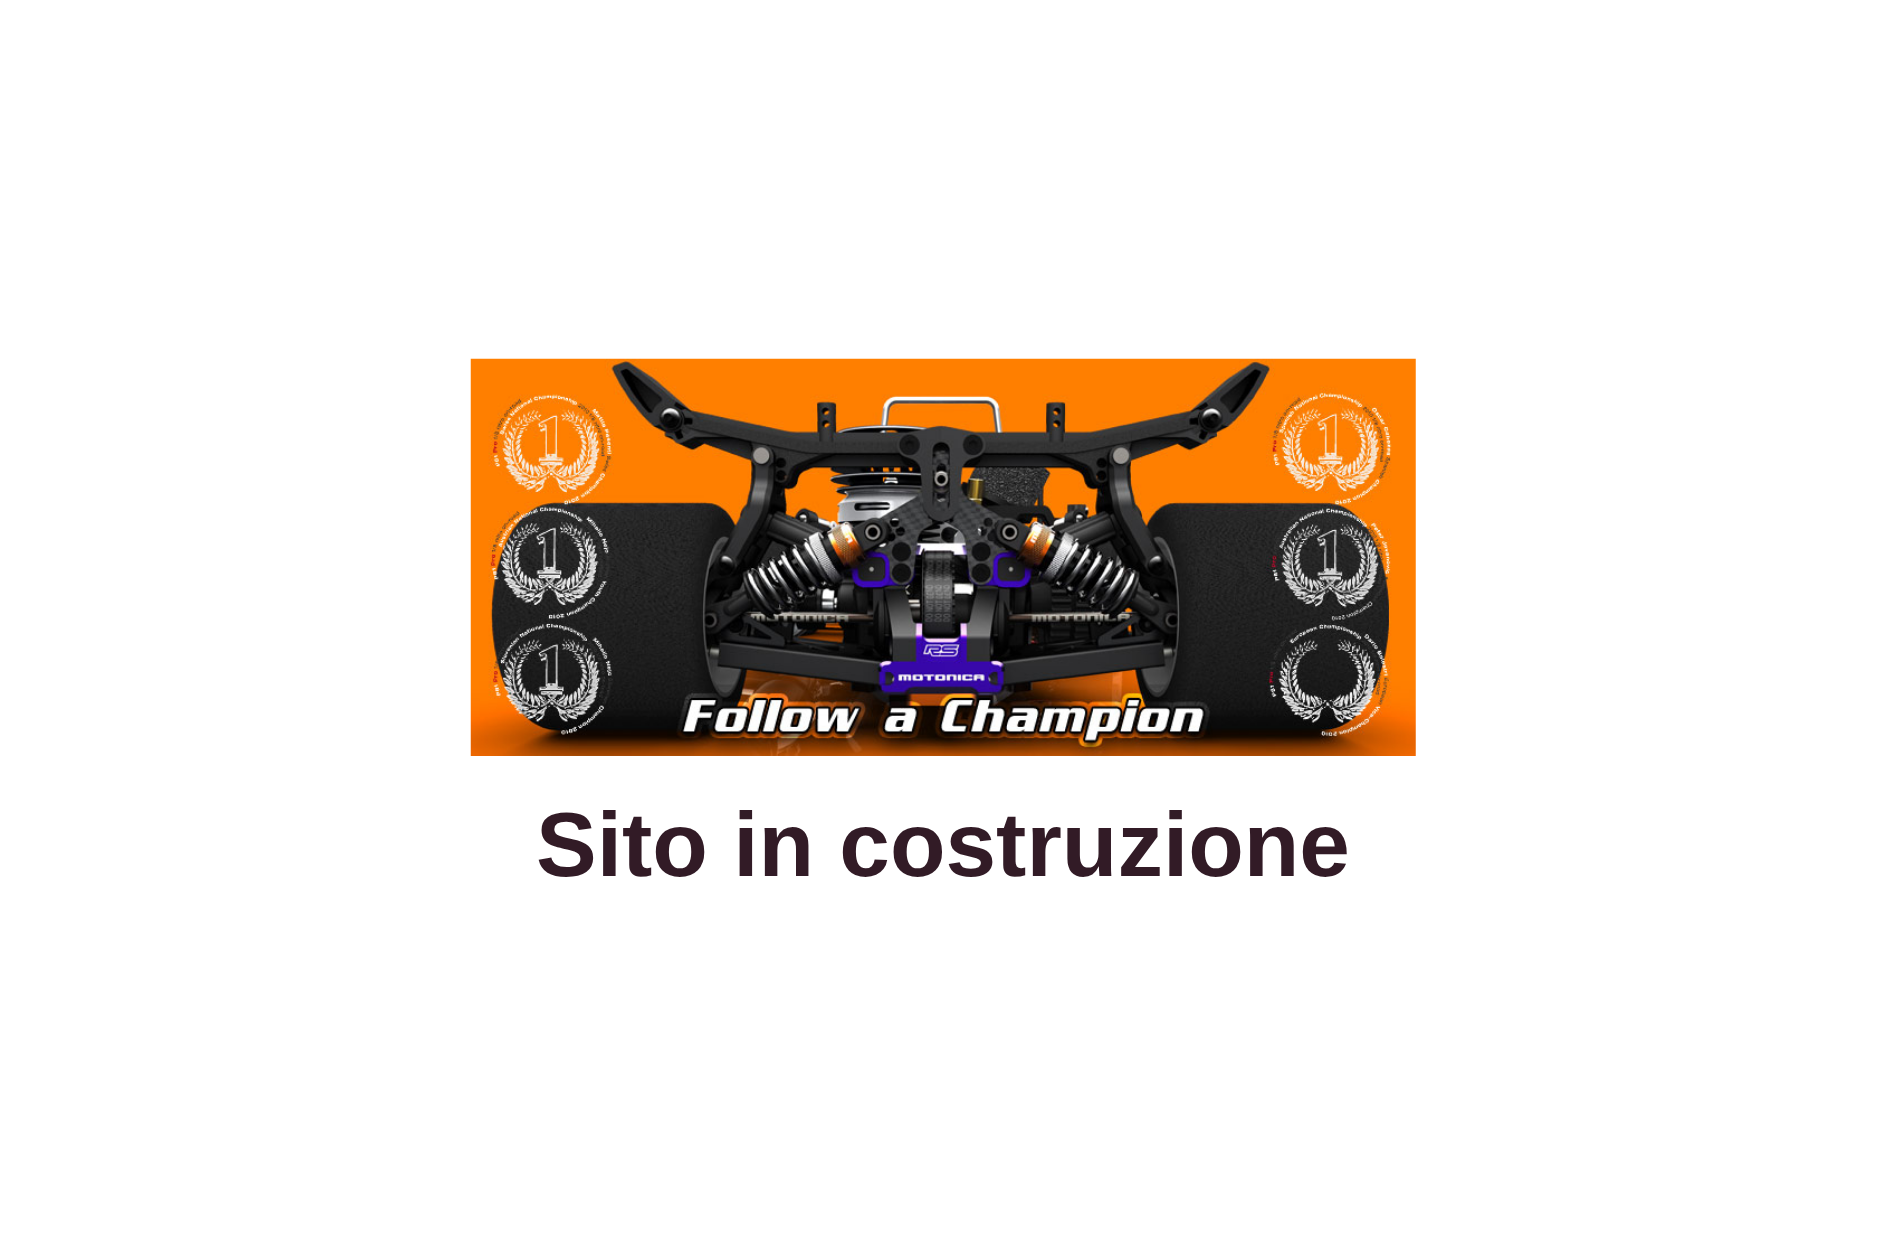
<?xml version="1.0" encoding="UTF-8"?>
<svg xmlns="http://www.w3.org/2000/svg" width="1886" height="1257">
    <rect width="100%" height="100%" fill="#FFFFFF"/>
    <image x="470" y="358" width="946" height="398" href="img_01.png"/>
    <text x="536" y="876" font-family="Liberation Sans" font-size="91" font-weight="700" fill="#321B26">Sito in costruzione</text>
</svg>
